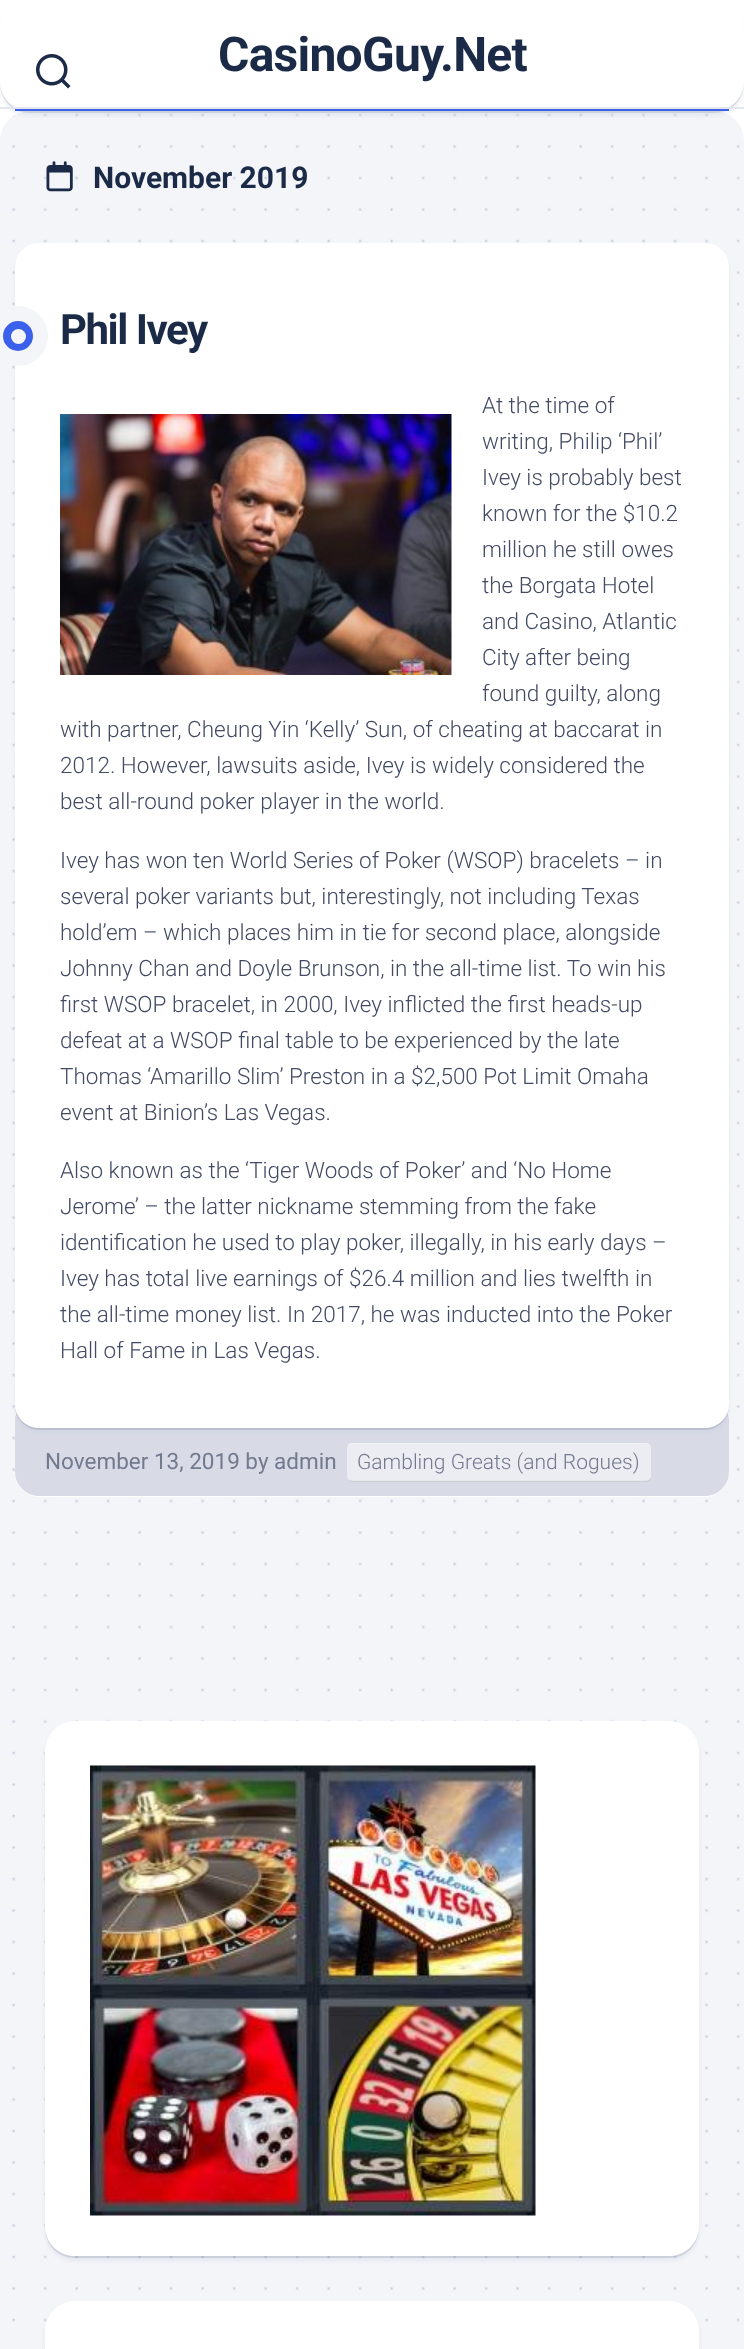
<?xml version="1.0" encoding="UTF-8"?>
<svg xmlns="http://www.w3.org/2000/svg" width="744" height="2349">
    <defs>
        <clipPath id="clip1"><path d="M 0 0 H 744 V 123 H 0 Z M 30 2 H 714 C 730.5 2 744 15.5 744 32 V 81 C 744 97.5 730.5 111 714 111 H 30 C 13.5 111 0 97.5 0 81 V 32 C 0 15.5 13.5 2 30 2 Z" clip-rule="evenodd"/></clipPath>
        <filter id="blur1" x="-50%" y="-200%" width="200%" height="500%"><feGaussianBlur stdDeviation="2"/></filter>
    </defs>
    <rect width="100%" height="100%" fill="#FFFFFF"/>
    <rect x="0" y="111" width="744" height="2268" rx="30" fill="#F4F5F8"/>
    <image x="12" y="113" width="728" height="2209" href="img_02.png"/>
    <g clip-path="url(#clip1)">
        <rect x="0" y="6" width="744" height="110" rx="30" fill="#C1CBE6" fill-opacity="0.3" filter="url(#blur1)"/>
    </g>
    <path d="M 0 81 V 83 C 0 100 13 113 30 113 H 714 C 731 113 744 100 744 83 V 81 C 744 98 731 111 714 111 H 30 C 13 111 0 98 0 81 Z" fill="#000000" fill-opacity="0.1"/>
    <rect x="0" y="2" width="744" height="109" rx="30" fill="#FFFFFF" fill-opacity="0.9"/>
    <image x="36" y="54" width="35" height="35" href="img_01.png"/>
    <rect x="15" y="109" width="714" height="2" fill="#3B61EB"/>
    <rect x="0" y="107" width="744" height="2" fill="#E4E6ED"/>
    <text x="218" y="71" font-family="Roboto" font-size="48" font-weight="700" letter-spacing="-0.75" fill="#1B2B47">CasinoGuy.Net</text>
    <image x="46" y="161" width="27" height="31" href="img_03.png"/>
    <text x="93" y="188" font-family="Roboto" font-size="30" font-weight="700" fill="#1B2B47">November 2019</text>
    <path d="M 15 1472 V 1473 C 15 1486 26 1497 39 1497 H 705 C 718 1497 729 1486 729 1473 V 1472 C 729 1485 718 1496 705 1496 H 39 C 26 1496 15 1485 15 1472 Z" fill="#FFFFFF"/>
    <rect x="15" y="1398" width="714" height="98" rx="24" fill="#D8DBE5"/>
    <path d="M 39 1400 H 705 C 718 1400 729 1410 729 1424 V 1422 C 729 1409 718 1398 705 1398 H 39 C 26 1398 15 1409 15 1422 V 1424 C 15 1410 26 1400 39 1400 Z" fill="#000000" fill-opacity="0.1"/>
    <rect x="15" y="248" width="714" height="1185" rx="24" fill="#C1CBE6" fill-opacity="0.3" filter="url(#blur1)"/>
    <path d="M 15 1404 V 1406 C 15 1419 26 1430 39 1430 H 705 C 718 1430 729 1419 729 1406 V 1404 C 729 1417 718 1428 705 1428 H 39 C 26 1428 15 1417 15 1404 Z" fill="#000000" fill-opacity="0.1"/>
    <rect x="15" y="243" width="714" height="1185" rx="24" fill="#FFFFFF"/>
    <circle cx="18" cy="336" r="22.5" fill="#3B61EB" stroke="#F4F5F8" stroke-width="15"/>
    <circle cx="18.5" cy="336.5" r="7.5" fill="#F4F5F8"/>
    <text x="60" y="344" font-family="Roboto" font-size="42" font-weight="700" letter-spacing="-1.5" fill="#1B2B47">Phil Ivey</text>
    <text x="482" y="413" font-family="Roboto" font-size="22.5" font-weight="300" fill="#434B64">At the time of</text>
    <image x="60" y="414" width="392" height="261" href="img_04.png"/>
    <text font-family="Roboto" font-size="22.5" font-weight="300" fill="#434B64">
        <tspan x="482" y="449">writing, Philip ‘Phil’</tspan>
        <tspan x="482" y="485">Ivey is probably best</tspan>
        <tspan x="482" y="521">known for the $10.2</tspan>
        <tspan x="482" y="557">million he still owes</tspan>
        <tspan x="482" y="593">the Borgata Hotel</tspan>
        <tspan x="482" y="629">and Casino, Atlantic</tspan>
        <tspan x="482" y="665">City after being</tspan>
        <tspan x="482" y="701">found guilty, along</tspan>
    </text>
    <text font-family="Roboto" font-size="22.5" font-weight="300" fill="#434B64">
        <tspan x="60" y="737">with partner, Cheung Yin ‘Kelly’ Sun, of cheating at baccarat in</tspan>
        <tspan x="60" y="773">2012. However, lawsuits aside, Ivey is widely considered the</tspan>
        <tspan x="60" y="809">best all-round poker player in the world.</tspan>
    </text>
    <text font-family="Roboto" font-size="22.5" font-weight="300" fill="#434B64">
        <tspan x="60" y="868">Ivey has won ten World Series of Poker (WSOP) bracelets – in</tspan>
        <tspan x="60" y="904">several poker variants but, interestingly, not including Texas</tspan>
        <tspan x="60" y="940">hold’em – which places him in tie for second place, alongside</tspan>
        <tspan x="60" y="976">Johnny Chan and Doyle Brunson, in the all-time list. To win his</tspan>
        <tspan x="60" y="1012">first WSOP bracelet, in 2000, Ivey inflicted the first heads-up</tspan>
        <tspan x="60" y="1048">defeat at a WSOP final table to be experienced by the late</tspan>
        <tspan x="60" y="1084">Thomas ‘Amarillo Slim’ Preston in a $2,500 Pot Limit Omaha</tspan>
        <tspan x="60" y="1120">event at Binion’s Las Vegas.</tspan>
    </text>
    <text font-family="Roboto" font-size="22.5" font-weight="300" fill="#434B64">
        <tspan x="60" y="1178">Also known as the ‘Tiger Woods of Poker’ and ‘No Home</tspan>
        <tspan x="60" y="1214">Jerome’ – the latter nickname stemming from the fake</tspan>
        <tspan x="60" y="1250">identification he used to play poker, illegally, in his early days –</tspan>
        <tspan x="60" y="1286">Ivey has total live earnings of $26.4 million and lies twelfth in</tspan>
        <tspan x="60" y="1322">the all-time money list. In 2017, he was inducted into the Poker</tspan>
        <tspan x="60" y="1358">Hall of Fame in Las Vegas.</tspan>
    </text>
    <text x="45" y="1469" font-family="Roboto" font-size="22.5" fill="#73798E">November 13, 2019 by admin</text>
    <path d="M 347 1478 C 348 1480 350 1482 352 1482 H 646 C 649 1482 651 1480 651 1477 V 1476 C 651 1478 649 1480 646 1480 H 351 C 349 1480 348 1480 347 1478 Z" fill="#CBCED7"/>
    <rect x="347" y="1443" width="304" height="38" rx="5" fill="#FFFFFF" fill-opacity="0.5"/>
    <path d="M 351 1444 H 646 C 649 1444 651 1447 651 1449 C 651 1446 649 1443 646 1443 H 351 C 349 1443 348 1445 347 1446 C 348 1445 350 1444 351 1444 Z" fill="#FFFFFF" fill-opacity="0.2"/>
    <text x="357" y="1469" font-family="Roboto" font-size="21" font-weight="300" fill="#73798E">Gambling Greats (and Rogues)</text>
    <rect x="45" y="1725" width="654" height="536" rx="30" fill="#C1CBE6" fill-opacity="0.3" filter="url(#blur1)"/>
    <path d="M 45 2226 V 2228 C 45 2245 58 2258 75 2258 H 669 C 686 2258 699 2245 699 2228 V 2226 C 699 2243 686 2256 669 2256 H 75 C 58 2256 45 2243 45 2226 Z" fill="#000000" fill-opacity="0.1"/>
    <rect x="45" y="1721" width="654" height="535" rx="30" fill="#FFFFFF"/>
    <image x="90" y="1765" width="446" height="451" href="img_05.png"/>
    <rect x="45" y="2306" width="654" height="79" rx="30" fill="#C1CBE6" fill-opacity="0.3" filter="url(#blur1)"/>
    <rect x="45" y="2301" width="654" height="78" rx="30" fill="#FFFFFF"/>
</svg>
